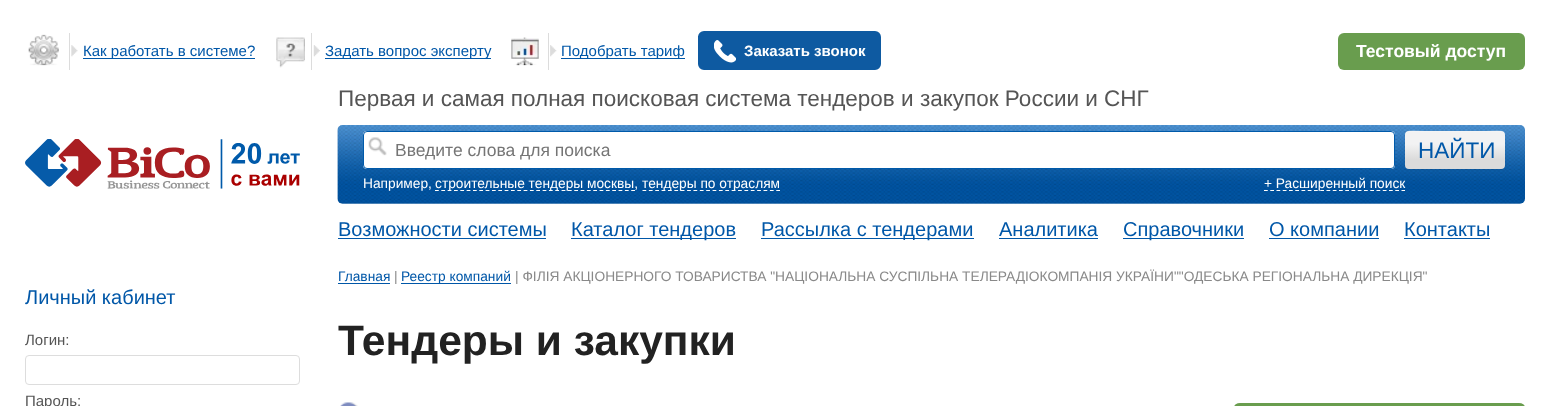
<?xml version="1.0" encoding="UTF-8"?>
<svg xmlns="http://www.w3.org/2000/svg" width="1550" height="406">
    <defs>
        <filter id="blur1" x="-50%" y="-200%" width="200%" height="500%"><feGaussianBlur stdDeviation="1"/></filter>
        <linearGradient id="g1" gradientUnits="userSpaceOnUse" x1="1405" y1="169" x2="1405" y2="131"><stop offset="0.25" stop-color="#DBDBDB"/><stop offset="0.66" stop-color="#F2F2F3"/></linearGradient>
    </defs>
    <rect width="100%" height="100%" fill="#FFFFFF"/>
    <image x="28" y="34" width="31" height="32" href="img_01.png"/>
    <image x="71" y="45" width="7" height="12" href="img_02.png"/>
    <rect x="69" y="33" width="1" height="37" fill="#DCDCDC"/>
    <rect x="83" y="58" width="172" height="1" fill="#0057A8"/>
    <text x="83" y="56" font-family="Liberation Sans" font-size="15" fill="#0057A8">Как работать в системе?</text>
    <image x="276" y="37" width="29" height="31" href="img_03.png"/>
    <image x="313" y="45" width="7" height="12" href="img_04.png"/>
    <rect x="311" y="33" width="1" height="37" fill="#DCDCDC"/>
    <rect x="325" y="58" width="166" height="1" fill="#0057A8"/>
    <text x="325" y="56" font-family="Liberation Sans" font-size="15" fill="#0057A8">Задать вопрос эксперту</text>
    <image x="511" y="37" width="28" height="29" href="img_05.png"/>
    <image x="550" y="45" width="7" height="12" href="img_06.png"/>
    <rect x="548" y="33" width="1" height="37" fill="#DCDCDC"/>
    <rect x="561" y="58" width="124" height="1" fill="#0057A8"/>
    <text x="561" y="56" font-family="Liberation Sans" font-size="15" fill="#0057A8">Подобрать тариф</text>
    <rect x="700" y="33" width="179" height="35" rx="4" fill="#0E5AA1" stroke="#0E5AA1" stroke-width="4"/>
    <image x="714" y="40" width="22" height="23" href="img_07.png"/>
    <text x="744" y="56" font-family="Liberation Sans" font-size="15" font-weight="700" fill="#FFFFFF">Заказать звонок</text>
    <rect x="1338" y="33" width="187" height="37" rx="6" fill="#699D4E"/>
    <text x="1356" y="57" font-family="Liberation Sans" font-size="17.5" font-weight="700" fill="#FFFFFF">Тестовый доступ</text>
    <image x="25" y="139" width="275" height="50" href="img_08.png"/>
    <text x="338" y="106" font-family="Liberation Sans" font-size="22.5" fill="#555555">Первая и самая полная поисковая система тендеров и закупок России и СНГ</text>
    <image x="337" y="125" width="1188" height="79" href="img_09.png"/>
    <rect x="363" y="131" width="1032" height="38" rx="4" fill="#FFFFFF"/>
    <image x="368" y="137" width="19" height="19" href="img_10.png"/>
    <rect x="363.5" y="131.5" width="1031" height="37" rx="3.5" fill="none" stroke="#005AAA"/>
    <text x="395" y="156" font-family="Liberation Sans" font-size="17.5" fill="#757575">Введите слова для поиска</text>
    <rect x="1405" y="133" width="100" height="37" rx="4" fill="#000000" fill-opacity="0.05" filter="url(#blur1)"/>
    <rect x="1405" y="131" width="100" height="38" rx="4" fill="url(#g1)"/>
    <path d="M 1409 132 H 1501 C 1503 132 1505 134 1505 136 C 1505 127 1490 131 1486 131 H 1424 C 1420 131 1405 127 1405 136 C 1405 134 1407 132 1409 132 Z" fill="#FFFFFF" fill-opacity="0.2"/>
    <text x="1418" y="158" font-family="Liberation Sans" font-size="22.5" fill="#0057A8">НАЙТИ</text>
    <text x="363" y="188" font-family="Liberation Sans" font-size="13.75" fill="#FFFFFF">Например,</text>
    <path d="M 435 190.5 H 635" fill="none" stroke="#FFFFFF" stroke-width="1.2" stroke-dasharray="3.75 2.58"/>
    <text x="435" y="188" font-family="Liberation Sans" font-size="13.75" fill="#FFFFFF">строительные тендеры москвы,</text>
    <path d="M 642.5 190.5 H 780" fill="none" stroke="#FFFFFF" stroke-width="1.2" stroke-dasharray="3.75 2.62"/>
    <text x="642" y="188" font-family="Liberation Sans" font-size="13.75" fill="#FFFFFF">тендеры по отраслям</text>
    <path d="M 1264 190.5 H 1405" fill="none" stroke="#FFFFFF" stroke-width="1.2" stroke-dasharray="3.75 2.5"/>
    <text x="1264" y="188" font-family="Liberation Sans" font-size="13.75" fill="#FFFFFF">+ Расширенный поиск</text>
    <text x="338" y="236" font-family="Liberation Sans" font-size="20" fill="#0057A8">Возможности системы</text>
    <rect x="338" y="238" width="208" height="1" fill="#0057A8"/>
    <rect x="571" y="238" width="165" height="1" fill="#0057A8"/>
    <text x="571" y="236" font-family="Liberation Sans" font-size="20" fill="#0057A8">Каталог тендеров</text>
    <rect x="761" y="238" width="213" height="1" fill="#0057A8"/>
    <text x="761" y="236" font-family="Liberation Sans" font-size="20" fill="#0057A8">Рассылка с тендерами</text>
    <text x="999" y="236" font-family="Liberation Sans" font-size="20" fill="#0057A8">Аналитика</text>
    <rect x="999" y="238" width="99" height="1" fill="#0057A8"/>
    <rect x="1123" y="238" width="121" height="1" fill="#0057A8"/>
    <text x="1123" y="236" font-family="Liberation Sans" font-size="20" fill="#0057A8">Справочники</text>
    <text x="1269" y="236" font-family="Liberation Sans" font-size="20" fill="#0057A8">О компании</text>
    <rect x="1269" y="238" width="110" height="1" fill="#0057A8"/>
    <text x="1404" y="236" font-family="Liberation Sans" font-size="20" fill="#0057A8">Контакты</text>
    <rect x="1404" y="238" width="86" height="1" fill="#0057A8"/>
    <text x="25" y="304" font-family="Liberation Sans" font-size="20" fill="#0057A8">Личный кабинет</text>
    <text x="25" y="345" font-family="Liberation Sans" font-size="15" fill="#555555">Логин:</text>
    <rect x="25.5" y="355.5" width="274" height="29" rx="3.5" fill="none" stroke="#DDDDDD"/>
    <text x="25" y="406" font-family="Liberation Sans" font-size="15" fill="#555555">Пароль:</text>
    <text x="338" y="281" font-family="Liberation Sans" font-size="13.75" fill="#0057A8">Главная</text>
    <rect x="338" y="283" width="52" height="1" fill="#0057A8"/>
    <text x="394" y="281" font-family="Liberation Sans" font-size="13.75" fill="#898989">|</text>
    <rect x="401" y="283" width="110" height="1" fill="#0057A8"/>
    <text x="401" y="281" font-family="Liberation Sans" font-size="13.75" fill="#0057A8">Реестр компаний</text>
    <text x="515" y="281" font-family="Liberation Sans" font-size="13.75" fill="#898989">| ФІЛІЯ АКЦІОНЕРНОГО ТОВАРИСТВА "НАЦІОНАЛЬНА СУСПІЛЬНА ТЕЛЕРАДІОКОМПАНІЯ УКРАЇНИ""ОДЕСЬКА РЕГІОНАЛЬНА ДИРЕКЦІЯ"</text>
    <text x="338" y="355" font-family="Liberation Sans" font-size="42.5" font-weight="700" fill="#222222">Тендеры и закупки</text>
    <image x="340" y="402" width="18" height="4" href="img_11.png"/>
    <rect x="1234" y="403" width="291" height="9" rx="6" fill="#699D4E"/>
</svg>
